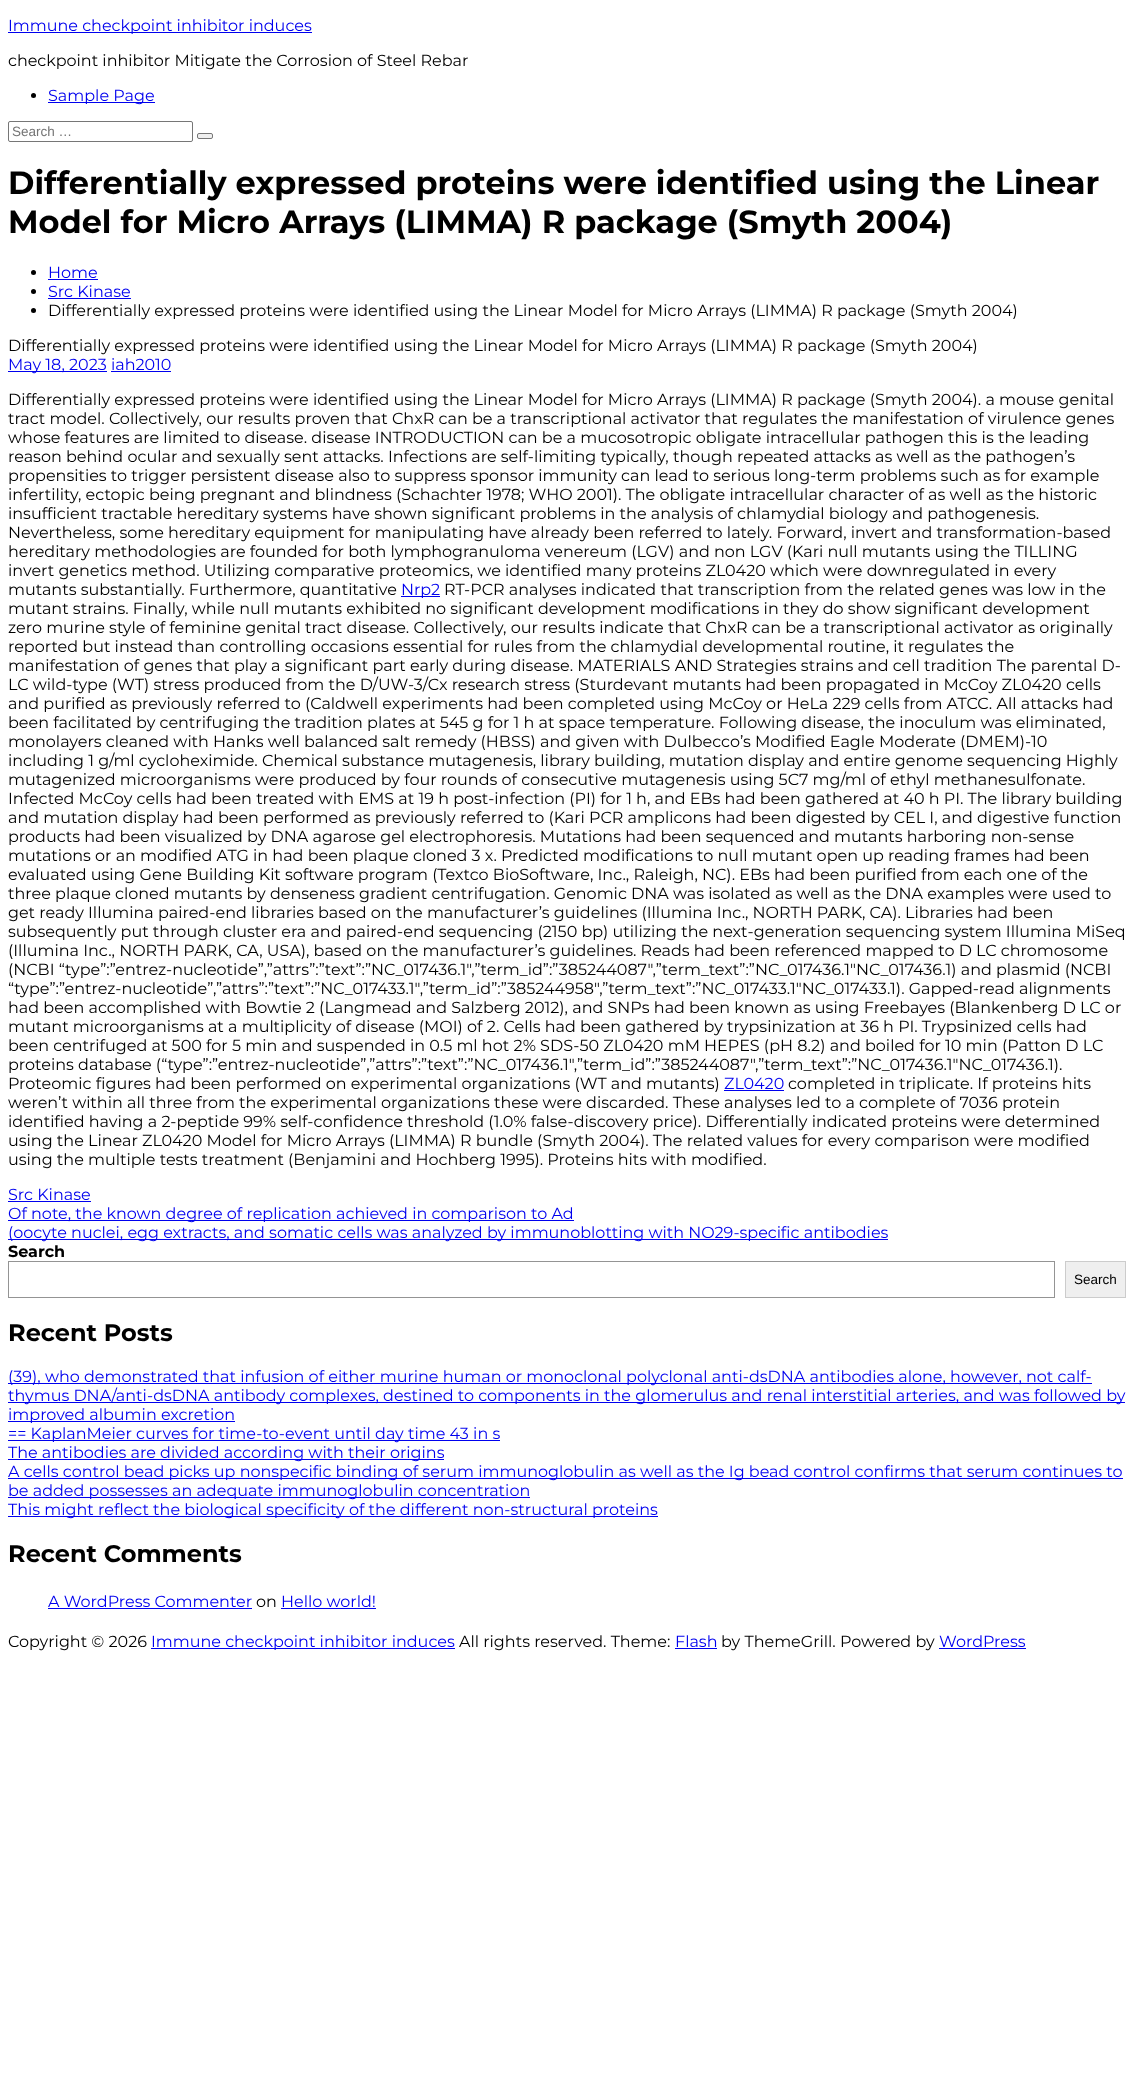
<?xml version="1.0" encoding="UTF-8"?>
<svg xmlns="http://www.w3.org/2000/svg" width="1134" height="2078">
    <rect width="100%" height="100%" fill="#FFFFFF"/>
    <rect x="8" y="32" width="304" height="1" fill="#0000EE"/>
    <text x="8" y="31" font-family="Montserrat" font-size="16" fill="#0000EE">Immune checkpoint inhibitor induces</text>
    <text x="8" y="66" font-family="Montserrat" font-size="16" fill="#000000">checkpoint inhibitor Mitigate the Corrosion of Steel Rebar</text>
    <circle cx="33.5" cy="95.5" r="2.5" fill="#000000"/>
    <rect x="48" y="102" width="107" height="1" fill="#0000EE"/>
    <text x="48" y="101" font-family="Montserrat" font-size="16" fill="#0000EE">Sample Page</text>
    <rect x="8.5" y="121.5" width="184" height="20" rx="1.5" fill="none" stroke="#767676"/>
    <text x="12" y="136" font-family="Liberation Sans" font-size="13.5" fill="#757575">Search …</text>
    <rect x="197.5" y="133.5" width="15" height="5" rx="1.5" fill="#EFEFEF" stroke="#767676"/>
    <text font-family="Montserrat" font-size="32" font-weight="700" fill="#000000">
        <tspan x="8" y="194">Differentially expressed proteins were identified using the Linear</tspan>
        <tspan x="8" y="233">Model for Micro Arrays (LIMMA) R package (Smyth 2004)</tspan>
    </text>
    <circle cx="33.5" cy="272.5" r="2.5" fill="#000000"/>
    <text x="48" y="278" font-family="Montserrat" font-size="16" fill="#0000EE">Home</text>
    <rect x="48" y="279" width="50" height="1" fill="#0000EE"/>
    <circle cx="33.5" cy="291.5" r="2.5" fill="#000000"/>
    <text x="48" y="297" font-family="Montserrat" font-size="16" fill="#0000EE">Src Kinase</text>
    <rect x="48" y="298" width="83" height="1" fill="#0000EE"/>
    <circle cx="33.5" cy="310.5" r="2.5" fill="#000000"/>
    <text x="48" y="316" font-family="Montserrat" font-size="16" fill="#000000">Differentially expressed proteins were identified using the Linear Model for Micro Arrays (LIMMA) R package (Smyth 2004)</text>
    <text x="8" y="351" font-family="Montserrat" font-size="16" fill="#000000">Differentially expressed proteins were identified using the Linear Model for Micro Arrays (LIMMA) R package (Smyth 2004)</text>
    <rect x="8" y="371" width="99" height="1" fill="#0000EE"/>
    <text x="8" y="370" font-family="Montserrat" font-size="16" fill="#0000EE">May 18, 2023 iah2010</text>
    <rect x="111" y="371" width="60" height="1" fill="#0000EE"/>
    <text font-family="Montserrat" font-size="16" fill="#000000">
        <tspan x="8" y="405">Differentially expressed proteins were identified using the Linear Model for Micro Arrays (LIMMA) R package (Smyth 2004). a mouse genital</tspan>
        <tspan x="8" y="424">tract model. Collectively, our results proven that ChxR can be a transcriptional activator that regulates the manifestation of virulence genes</tspan>
        <tspan x="8" y="443">whose features are limited to disease. disease INTRODUCTION can be a mucosotropic obligate intracellular pathogen this is the leading</tspan>
        <tspan x="8" y="462">reason behind ocular and sexually sent attacks. Infections are self-limiting typically, though repeated attacks as well as the pathogen’s</tspan>
        <tspan x="8" y="481">propensities to trigger persistent disease also to suppress sponsor immunity can lead to serious long-term problems such as for example</tspan>
        <tspan x="8" y="500">infertility, ectopic being pregnant and blindness (Schachter 1978; WHO 2001). The obligate intracellular character of as well as the historic</tspan>
        <tspan x="8" y="519">insufficient tractable hereditary systems have shown significant problems in the analysis of chlamydial biology and pathogenesis.</tspan>
        <tspan x="8" y="538">Nevertheless, some hereditary equipment for manipulating have already been referred to lately. Forward, invert and transformation-based</tspan>
        <tspan x="8" y="557">hereditary methodologies are founded for both lymphogranuloma venereum (LGV) and non LGV (Kari null mutants using the TILLING</tspan>
        <tspan x="8" y="576">invert genetics method. Utilizing comparative proteomics, we identified many proteins ZL0420 which were downregulated in every</tspan>
        <tspan x="8" y="595">mutants substantially. Furthermore, quantitative</tspan>
    </text>
    <rect x="401" y="596" width="39" height="1" fill="#0000EE"/>
    <text x="401" y="595" font-family="Montserrat" font-size="16" fill="#0000EE">Nrp2</text>
    <text x="444" y="595" font-family="Montserrat" font-size="16" fill="#000000">RT-PCR analyses indicated that transcription from the related genes was low in the</text>
    <text font-family="Montserrat" font-size="16" fill="#000000">
        <tspan x="8" y="614">mutant strains. Finally, while null mutants exhibited no significant development modifications in they do show significant development</tspan>
        <tspan x="8" y="633">zero murine style of feminine genital tract disease. Collectively, our results indicate that ChxR can be a transcriptional activator as originally</tspan>
        <tspan x="8" y="652">reported but instead than controlling occasions essential for rules from the chlamydial developmental routine, it regulates the</tspan>
        <tspan x="8" y="671">manifestation of genes that play a significant part early during disease. MATERIALS AND Strategies strains and cell tradition The parental D-</tspan>
        <tspan x="8" y="690">LC wild-type (WT) stress produced from the D/UW-3/Cx research stress (Sturdevant mutants had been propagated in McCoy ZL0420 cells</tspan>
        <tspan x="8" y="709">and purified as previously referred to (Caldwell experiments had been completed using McCoy or HeLa 229 cells from ATCC. All attacks had</tspan>
        <tspan x="8" y="728">been facilitated by centrifuging the tradition plates at 545 g for 1 h at space temperature. Following disease, the inoculum was eliminated,</tspan>
        <tspan x="8" y="747">monolayers cleaned with Hanks well balanced salt remedy (HBSS) and given with Dulbecco’s Modified Eagle Moderate (DMEM)-10</tspan>
        <tspan x="8" y="766">including 1 g/ml cycloheximide. Chemical substance mutagenesis, library building, mutation display and entire genome sequencing Highly</tspan>
        <tspan x="8" y="785">mutagenized microorganisms were produced by four rounds of consecutive mutagenesis using 5C7 mg/ml of ethyl methanesulfonate.</tspan>
        <tspan x="8" y="804">Infected McCoy cells had been treated with EMS at 19 h post-infection (PI) for 1 h, and EBs had been gathered at 40 h PI. The library building</tspan>
        <tspan x="8" y="823">and mutation display had been performed as previously referred to (Kari PCR amplicons had been digested by CEL I, and digestive function</tspan>
        <tspan x="8" y="842">products had been visualized by DNA agarose gel electrophoresis. Mutations had been sequenced and mutants harboring non-sense</tspan>
        <tspan x="8" y="861">mutations or an modified ATG in had been plaque cloned 3 x. Predicted modifications to null mutant open up reading frames had been</tspan>
        <tspan x="8" y="880">evaluated using Gene Building Kit software program (Textco BioSoftware, Inc., Raleigh, NC). EBs had been purified from each one of the</tspan>
        <tspan x="8" y="899">three plaque cloned mutants by denseness gradient centrifugation. Genomic DNA was isolated as well as the DNA examples were used to</tspan>
        <tspan x="8" y="918">get ready Illumina paired-end libraries based on the manufacturer’s guidelines (Illumina Inc., NORTH PARK, CA). Libraries had been</tspan>
        <tspan x="8" y="937">subsequently put through cluster era and paired-end sequencing (2150 bp) utilizing the next-generation sequencing system Illumina MiSeq</tspan>
        <tspan x="8" y="956">(Illumina Inc., NORTH PARK, CA, USA), based on the manufacturer’s guidelines. Reads had been referenced mapped to D LC chromosome</tspan>
        <tspan x="8" y="975">(NCBI “type”:”entrez-nucleotide”,”attrs”:”text”:”NC_017436.1″,”term_id”:”385244087″,”term_text”:”NC_017436.1″NC_017436.1) and plasmid (NCBI</tspan>
        <tspan x="8" y="994">“type”:”entrez-nucleotide”,”attrs”:”text”:”NC_017433.1″,”term_id”:”385244958″,”term_text”:”NC_017433.1″NC_017433.1). Gapped-read alignments</tspan>
        <tspan x="8" y="1013">had been accomplished with Bowtie 2 (Langmead and Salzberg 2012), and SNPs had been known as using Freebayes (Blankenberg D LC or</tspan>
        <tspan x="8" y="1032">mutant microorganisms at a multiplicity of disease (MOI) of 2. Cells had been gathered by trypsinization at 36 h PI. Trypsinized cells had</tspan>
        <tspan x="8" y="1051">been centrifuged at 500 for 5 min and suspended in 0.5 ml hot 2% SDS-50 ZL0420 mM HEPES (pH 8.2) and boiled for 10 min (Patton D LC</tspan>
        <tspan x="8" y="1070">proteins database (“type”:”entrez-nucleotide”,”attrs”:”text”:”NC_017436.1″,”term_id”:”385244087″,”term_text”:”NC_017436.1″NC_017436.1).</tspan>
        <tspan x="8" y="1089">Proteomic figures had been performed on experimental organizations (WT and mutants)</tspan>
    </text>
    <text x="724" y="1089" font-family="Montserrat" font-size="16" fill="#0000EE">ZL0420</text>
    <rect x="724" y="1090" width="60" height="1" fill="#0000EE"/>
    <text x="788" y="1089" font-family="Montserrat" font-size="16" fill="#000000">completed in triplicate. If proteins hits</text>
    <text font-family="Montserrat" font-size="16" fill="#000000">
        <tspan x="8" y="1108">weren’t within all three from the experimental organizations these were discarded. These analyses led to a complete of 7036 protein</tspan>
        <tspan x="8" y="1127">identified having a 2-peptide 99% self-confidence threshold (1.0% false-discovery price). Differentially indicated proteins were determined</tspan>
        <tspan x="8" y="1146">using the Linear ZL0420 Model for Micro Arrays (LIMMA) R bundle (Smyth 2004). The related values for every comparison were modified</tspan>
        <tspan x="8" y="1165">using the multiple tests treatment (Benjamini and Hochberg 1995). Proteins hits with modified.</tspan>
    </text>
    <text x="8" y="1200" font-family="Montserrat" font-size="16" fill="#0000EE">Src Kinase</text>
    <rect x="8" y="1201" width="83" height="1" fill="#0000EE"/>
    <rect x="8" y="1220" width="566" height="1" fill="#0000EE"/>
    <text x="8" y="1219" font-family="Montserrat" font-size="16" fill="#0000EE">Of note, the known degree of replication achieved in comparison to Ad</text>
    <rect x="8" y="1239" width="880" height="1" fill="#0000EE"/>
    <text x="8" y="1238" font-family="Montserrat" font-size="16" fill="#0000EE">(oocyte nuclei, egg extracts, and somatic cells was analyzed by immunoblotting with NO29-specific antibodies</text>
    <text x="8" y="1257" font-family="Montserrat" font-size="16" font-weight="700" fill="#000000">Search</text>
    <rect x="8.5" y="1261.5" width="1046" height="36" fill="none" stroke="#949494"/>
    <rect x="1065.5" y="1261.5" width="60" height="36" fill="#EFEFEF" stroke="#CCCCCC"/>
    <text x="1074" y="1284" font-family="Liberation Sans" font-size="13.5" fill="#000000">Search</text>
    <text x="8" y="1341" font-family="Montserrat" font-size="24" font-weight="700" fill="#000000">Recent Posts</text>
    <rect x="8" y="1383" width="1084" height="1" fill="#0000EE"/>
    <text x="8" y="1382" font-family="Montserrat" font-size="16" fill="#0000EE">(39), who demonstrated that infusion of either murine human or monoclonal polyclonal anti-dsDNA antibodies alone, however, not calf-</text>
    <rect x="8" y="1402" width="1117" height="1" fill="#0000EE"/>
    <text x="8" y="1401" font-family="Montserrat" font-size="16" fill="#0000EE">thymus DNA/anti-dsDNA antibody complexes, destined to components in the glomerulus and renal interstitial arteries, and was followed by</text>
    <rect x="8" y="1421" width="227" height="1" fill="#0000EE"/>
    <text x="8" y="1420" font-family="Montserrat" font-size="16" fill="#0000EE">improved albumin excretion</text>
    <rect x="8" y="1440" width="492" height="1" fill="#0000EE"/>
    <text x="8" y="1439" font-family="Montserrat" font-size="16" fill="#0000EE">== KaplanMeier curves for time-to-event until day time 43 in s</text>
    <rect x="8" y="1459" width="436" height="1" fill="#0000EE"/>
    <text x="8" y="1458" font-family="Montserrat" font-size="16" fill="#0000EE">The antibodies are divided according with their origins</text>
    <rect x="8" y="1478" width="1115" height="1" fill="#0000EE"/>
    <text x="8" y="1477" font-family="Montserrat" font-size="16" fill="#0000EE">A cells control bead picks up nonspecific binding of serum immunoglobulin as well as the Ig bead control confirms that serum continues to</text>
    <rect x="8" y="1497" width="522" height="1" fill="#0000EE"/>
    <text x="8" y="1496" font-family="Montserrat" font-size="16" fill="#0000EE">be added possesses an adequate immunoglobulin concentration</text>
    <rect x="8" y="1516" width="650" height="1" fill="#0000EE"/>
    <text x="8" y="1515" font-family="Montserrat" font-size="16" fill="#0000EE">This might reflect the biological specificity of the different non-structural proteins</text>
    <text x="8" y="1562" font-family="Montserrat" font-size="24" font-weight="700" fill="#000000">Recent Comments</text>
    <text x="48" y="1607" font-family="Montserrat" font-size="16" fill="#0000EE">A WordPress Commenter</text>
    <rect x="48" y="1608" width="204" height="1" fill="#0000EE"/>
    <text x="256" y="1607" font-family="Montserrat" font-size="16" fill="#000000">on</text>
    <text x="281" y="1607" font-family="Montserrat" font-size="16" fill="#0000EE">Hello world!</text>
    <rect x="281" y="1608" width="95" height="1" fill="#0000EE"/>
    <text x="8" y="1647" font-family="Montserrat" font-size="16" fill="#000000">Copyright © 2026</text>
    <rect x="151" y="1648" width="304" height="1" fill="#0000EE"/>
    <text x="151" y="1647" font-family="Montserrat" font-size="16" fill="#0000EE">Immune checkpoint inhibitor induces</text>
    <text x="459" y="1647" font-family="Montserrat" font-size="16" fill="#000000">All rights reserved. Theme:</text>
    <text x="675" y="1647" font-family="Montserrat" font-size="16" fill="#0000EE">Flash</text>
    <rect x="675" y="1648" width="42" height="1" fill="#0000EE"/>
    <text x="721" y="1647" font-family="Montserrat" font-size="16" fill="#000000">by ThemeGrill. Powered by</text>
    <text x="939" y="1647" font-family="Montserrat" font-size="16" fill="#0000EE">WordPress</text>
    <rect x="939" y="1648" width="87" height="1" fill="#0000EE"/>
</svg>
